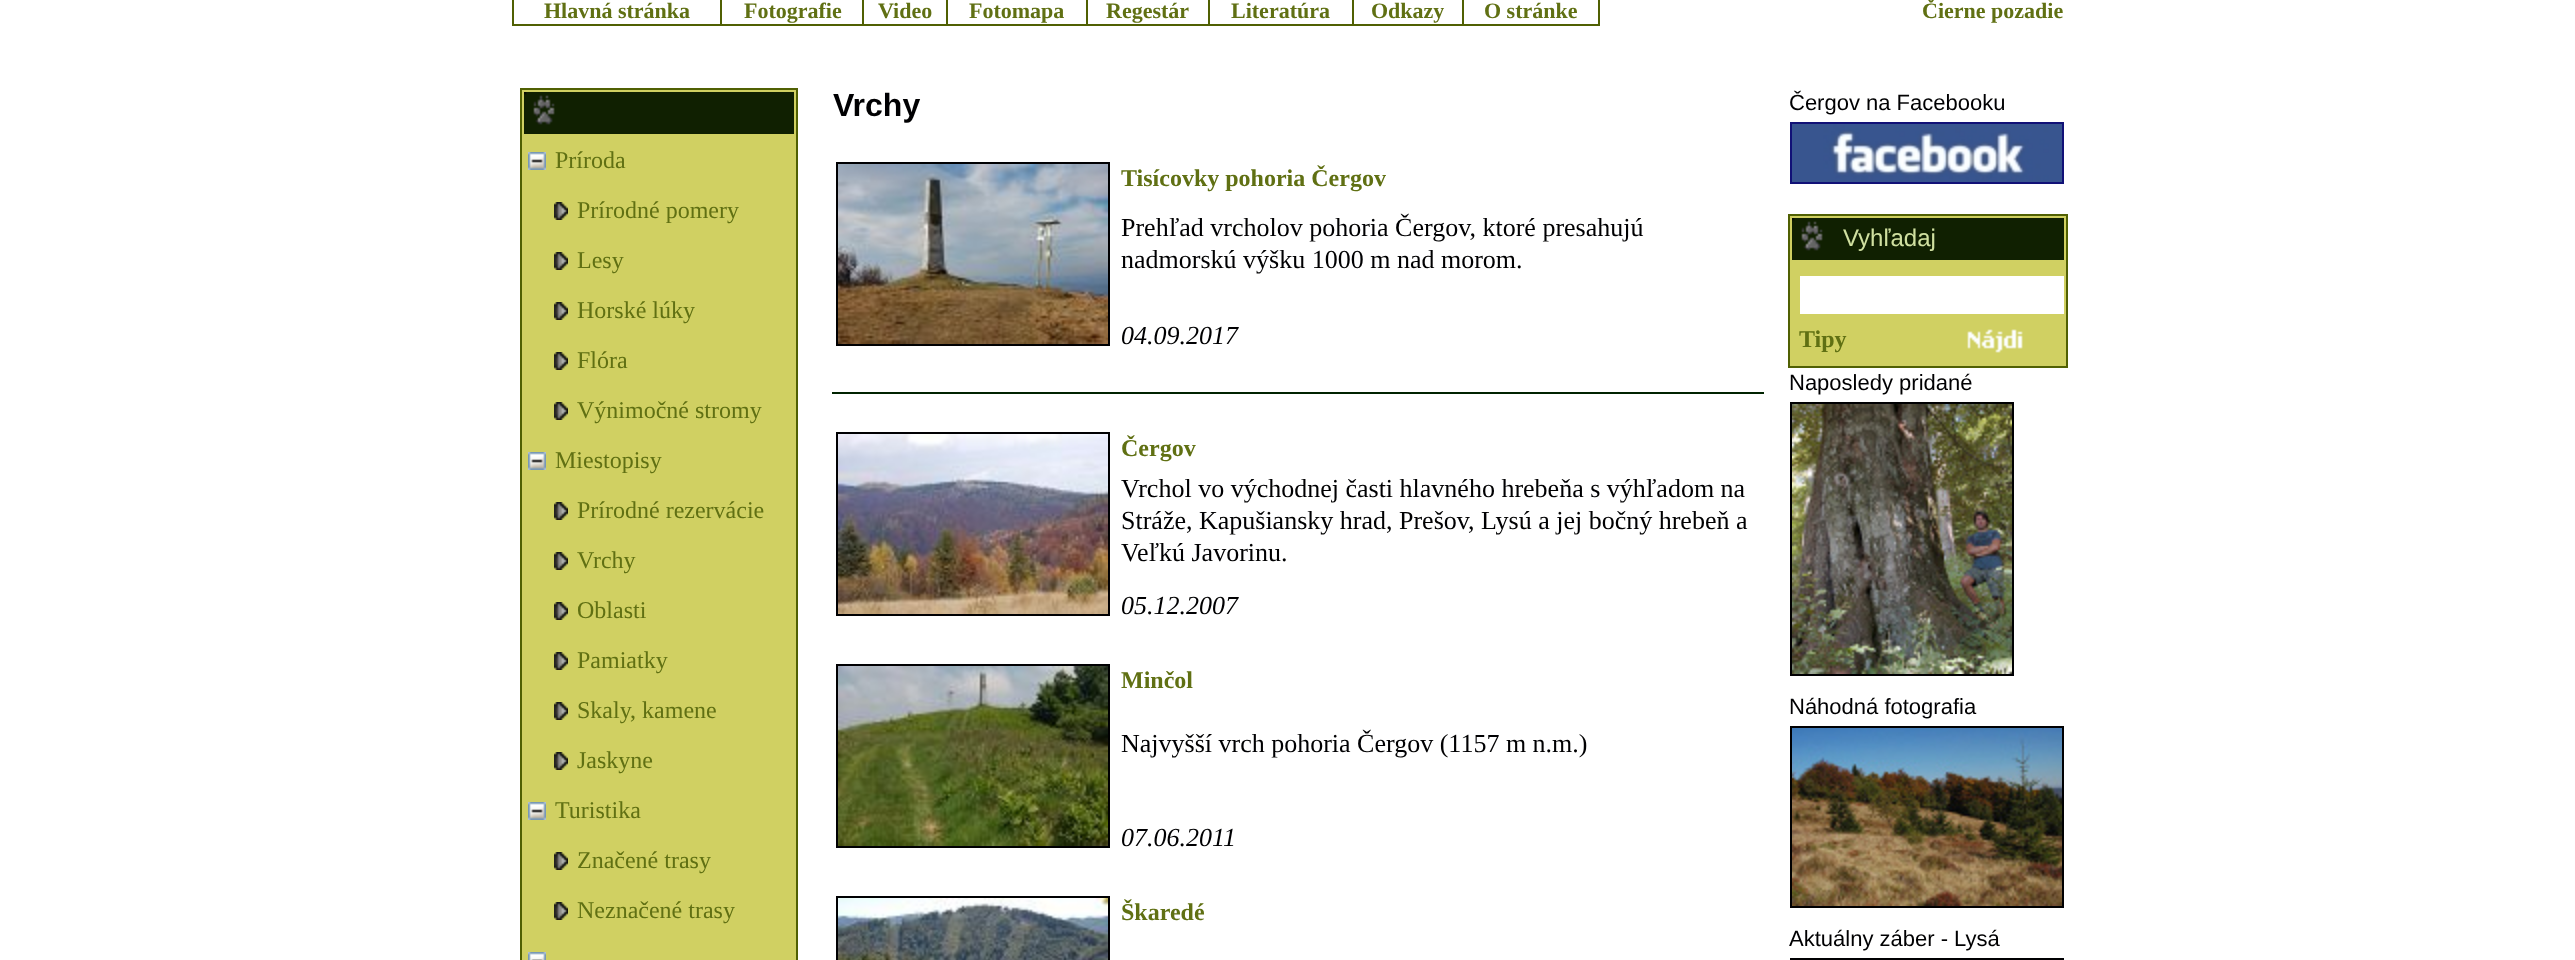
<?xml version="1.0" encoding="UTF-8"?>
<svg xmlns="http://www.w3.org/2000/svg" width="2575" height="960">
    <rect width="100%" height="100%" fill="#FFFFFF"/>
    <rect x="1598" y="0" width="2" height="26" fill="#506003"/>
    <rect x="1462" y="24" width="138" height="2" fill="#506003"/>
    <rect x="1462" y="0" width="2" height="26" fill="#506003"/>
    <rect x="1352" y="24" width="112" height="2" fill="#506003"/>
    <rect x="1352" y="0" width="2" height="26" fill="#506003"/>
    <rect x="1208" y="24" width="146" height="2" fill="#506003"/>
    <rect x="1208" y="0" width="2" height="26" fill="#506003"/>
    <rect x="1086" y="24" width="124" height="2" fill="#506003"/>
    <rect x="1086" y="0" width="2" height="26" fill="#506003"/>
    <rect x="946" y="24" width="142" height="2" fill="#506003"/>
    <rect x="946" y="0" width="2" height="26" fill="#506003"/>
    <rect x="862" y="24" width="86" height="2" fill="#506003"/>
    <rect x="862" y="0" width="2" height="26" fill="#506003"/>
    <rect x="720" y="24" width="144" height="2" fill="#506003"/>
    <rect x="720" y="0" width="2" height="26" fill="#506003"/>
    <rect x="512" y="24" width="210" height="2" fill="#506003"/>
    <rect x="512" y="0" width="2" height="26" fill="#506003"/>
    <text x="544" y="18" font-family="Liberation Serif" font-size="22" font-weight="700" fill="#607013">Hlavná stránka</text>
    <text x="744" y="18" font-family="Liberation Serif" font-size="22" font-weight="700" fill="#607013">Fotografie</text>
    <text x="878" y="18" font-family="Liberation Serif" font-size="22" font-weight="700" fill="#607013">Video</text>
    <text x="969" y="18" font-family="Liberation Serif" font-size="22" font-weight="700" fill="#607013">Fotomapa</text>
    <text x="1106" y="18" font-family="Liberation Serif" font-size="22" font-weight="700" fill="#607013">Regestár</text>
    <text x="1231" y="18" font-family="Liberation Serif" font-size="22" font-weight="700" fill="#607013">Literatúra</text>
    <text x="1371" y="18" font-family="Liberation Serif" font-size="22" font-weight="700" fill="#607013">Odkazy</text>
    <text x="1484" y="18" font-family="Liberation Serif" font-size="22" font-weight="700" fill="#607013">O stránke</text>
    <text x="1922" y="18" font-family="Liberation Serif" font-size="22" font-weight="700" fill="#607013">Čierne pozadie</text>
    <rect x="522" y="90" width="274" height="870" fill="#D0D062"/>
    <rect x="520" y="88" width="278" height="2" fill="#506003"/>
    <rect x="796" y="88" width="2" height="872" fill="#506003"/>
    <rect x="520" y="88" width="2" height="872" fill="#506003"/>
    <rect x="524" y="92" width="270" height="42" fill="#102001"/>
    <image x="524" y="92" width="31" height="33" href="img_01.png"/>
    <image x="528" y="152" width="18" height="18" href="img_02.png"/>
    <text x="555" y="168" font-family="Liberation Serif" font-size="24" fill="#607013">Príroda</text>
    <image x="554" y="202" width="14" height="18" href="img_03.png"/>
    <text x="577" y="218" font-family="Liberation Serif" font-size="24" fill="#607013">Prírodné pomery</text>
    <image x="554" y="252" width="14" height="18" href="img_03.png"/>
    <text x="577" y="268" font-family="Liberation Serif" font-size="24" fill="#607013">Lesy</text>
    <image x="554" y="302" width="14" height="18" href="img_03.png"/>
    <text x="577" y="318" font-family="Liberation Serif" font-size="24" fill="#607013">Horské lúky</text>
    <image x="554" y="352" width="14" height="18" href="img_03.png"/>
    <text x="577" y="368" font-family="Liberation Serif" font-size="24" fill="#607013">Flóra</text>
    <image x="554" y="402" width="14" height="18" href="img_03.png"/>
    <text x="577" y="418" font-family="Liberation Serif" font-size="24" fill="#607013">Výnimočné stromy</text>
    <image x="528" y="452" width="18" height="18" href="img_02.png"/>
    <text x="555" y="468" font-family="Liberation Serif" font-size="24" fill="#607013">Miestopisy</text>
    <image x="554" y="502" width="14" height="18" href="img_03.png"/>
    <text x="577" y="518" font-family="Liberation Serif" font-size="24" fill="#607013">Prírodné rezervácie</text>
    <image x="554" y="552" width="14" height="18" href="img_03.png"/>
    <text x="577" y="568" font-family="Liberation Serif" font-size="24" fill="#607013">Vrchy</text>
    <image x="554" y="602" width="14" height="18" href="img_03.png"/>
    <text x="577" y="618" font-family="Liberation Serif" font-size="24" fill="#607013">Oblasti</text>
    <image x="554" y="652" width="14" height="18" href="img_03.png"/>
    <text x="577" y="668" font-family="Liberation Serif" font-size="24" fill="#607013">Pamiatky</text>
    <image x="554" y="702" width="14" height="18" href="img_03.png"/>
    <text x="577" y="718" font-family="Liberation Serif" font-size="24" fill="#607013">Skaly, kamene</text>
    <image x="554" y="752" width="14" height="18" href="img_03.png"/>
    <text x="577" y="768" font-family="Liberation Serif" font-size="24" fill="#607013">Jaskyne</text>
    <image x="528" y="802" width="18" height="18" href="img_02.png"/>
    <text x="555" y="818" font-family="Liberation Serif" font-size="24" fill="#607013">Turistika</text>
    <image x="554" y="852" width="14" height="18" href="img_03.png"/>
    <text x="577" y="868" font-family="Liberation Serif" font-size="24" fill="#607013">Značené trasy</text>
    <image x="554" y="902" width="14" height="18" href="img_03.png"/>
    <text x="577" y="918" font-family="Liberation Serif" font-size="24" fill="#607013">Neznačené trasy</text>
    <image x="528" y="952" width="18" height="8" href="img_04.png"/>
    <text x="833" y="116" font-family="Liberation Sans" font-size="32" font-weight="700" fill="#000002">Vrchy</text>
    <rect x="837" y="163" width="272" height="182" fill="none" stroke="#000002" stroke-width="2"/>
    <image x="838" y="164" width="270" height="180" href="img_05.png"/>
    <text x="1121" y="186" font-family="Liberation Serif" font-size="24" font-weight="700" fill="#607013">Tisícovky pohoria Čergov</text>
    <text font-family="Liberation Serif" font-size="26" fill="#000002">
        <tspan x="1121" y="236">Prehľad vrcholov pohoria Čergov, ktoré presahujú</tspan>
        <tspan x="1121" y="268">nadmorskú výšku 1000 m nad morom.</tspan>
    </text>
    <text x="1121" y="344" font-family="Liberation Serif" font-size="26" font-style="italic" fill="#000002">04.09.2017</text>
    <rect x="832" y="392" width="932" height="2" fill="#002300"/>
    <rect x="837" y="433" width="272" height="182" fill="none" stroke="#000002" stroke-width="2"/>
    <image x="838" y="434" width="270" height="180" href="img_06.png"/>
    <text x="1121" y="456" font-family="Liberation Serif" font-size="24" font-weight="700" fill="#607013">Čergov</text>
    <text font-family="Liberation Serif" font-size="26" fill="#000002">
        <tspan x="1121" y="497">Vrchol vo východnej časti hlavného hrebeňa s výhľadom na</tspan>
        <tspan x="1121" y="529">Stráže, Kapušiansky hrad, Prešov, Lysú a jej bočný hrebeň a</tspan>
        <tspan x="1121" y="561">Veľkú Javorinu.</tspan>
    </text>
    <text x="1121" y="614" font-family="Liberation Serif" font-size="26" font-style="italic" fill="#000002">05.12.2007</text>
    <rect x="837" y="665" width="272" height="182" fill="none" stroke="#000002" stroke-width="2"/>
    <image x="838" y="666" width="270" height="180" href="img_07.png"/>
    <text x="1121" y="688" font-family="Liberation Serif" font-size="24" font-weight="700" fill="#607013">Minčol</text>
    <text x="1121" y="752" font-family="Liberation Serif" font-size="26" fill="#000002">Najvyšší vrch pohoria Čergov (1157 m n.m.)</text>
    <text x="1121" y="846" font-family="Liberation Serif" font-size="26" font-style="italic" fill="#000002">07.06.2011</text>
    <rect x="837" y="897" width="272" height="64" fill="none" stroke="#000002" stroke-width="2"/>
    <image x="838" y="898" width="270" height="62" href="img_08.png"/>
    <text x="1121" y="920" font-family="Liberation Serif" font-size="24" font-weight="700" fill="#607013">Škaredé</text>
    <text x="1789" y="110" font-family="Liberation Sans" font-size="22" fill="#000002">Čergov na Facebooku</text>
    <rect x="1791" y="123" width="272" height="60" fill="none" stroke="#111177" stroke-width="2"/>
    <image x="1792" y="124" width="270" height="58" href="img_09.png"/>
    <rect x="1790" y="216" width="276" height="150" fill="#D0D062"/>
    <rect x="1788" y="214" width="280" height="2" fill="#506003"/>
    <rect x="2066" y="214" width="2" height="154" fill="#506003"/>
    <rect x="1788" y="366" width="280" height="2" fill="#506003"/>
    <rect x="1788" y="214" width="2" height="154" fill="#506003"/>
    <rect x="1792" y="218" width="272" height="42" fill="#102001"/>
    <image x="1792" y="218" width="31" height="33" href="img_01.png"/>
    <text x="1843" y="246" font-family="Liberation Sans" font-size="24" fill="#D0E0A0">Vyhľadaj</text>
    <rect x="1800" y="276" width="264" height="38" fill="#FFFFFF"/>
    <text x="1799" y="347" font-family="Liberation Serif" font-size="24" font-weight="700" fill="#607013">Tipy</text>
    <image x="1967" y="329" width="56" height="24" href="img_10.png"/>
    <text x="1789" y="390" font-family="Liberation Sans" font-size="22" fill="#000002">Naposledy pridané</text>
    <rect x="1791" y="403" width="222" height="272" fill="none" stroke="#000002" stroke-width="2"/>
    <image x="1792" y="404" width="220" height="270" href="img_11.png"/>
    <text x="1789" y="714" font-family="Liberation Sans" font-size="22" fill="#000002">Náhodná fotografia</text>
    <rect x="1791" y="727" width="272" height="180" fill="none" stroke="#000002" stroke-width="2"/>
    <image x="1792" y="728" width="270" height="178" href="img_12.png"/>
    <text x="1789" y="946" font-family="Liberation Sans" font-size="22" fill="#000002">Aktuálny záber - Lysá</text>
    <rect x="1791" y="959" width="272" height="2" fill="none" stroke="#000002" stroke-width="2"/>
</svg>
